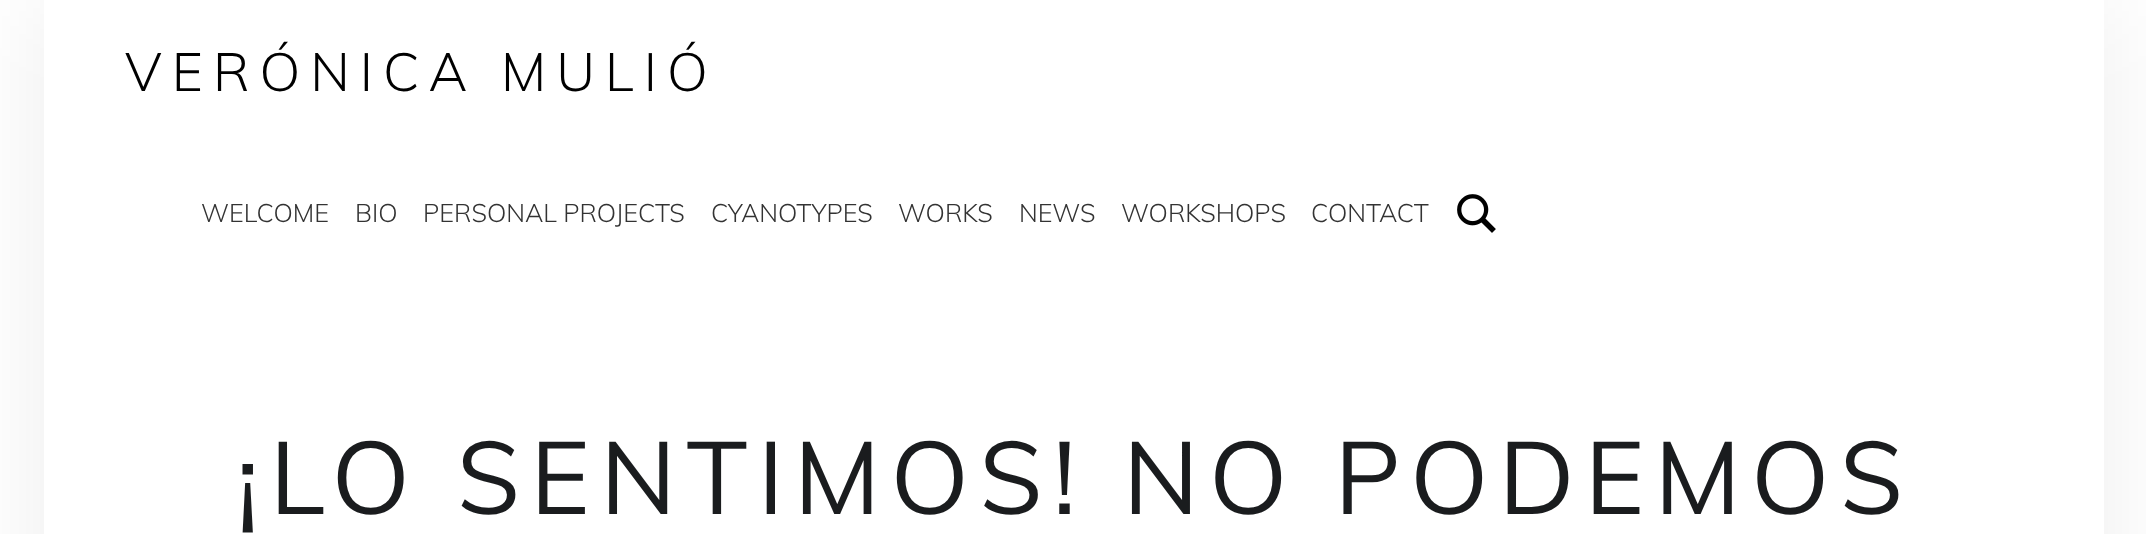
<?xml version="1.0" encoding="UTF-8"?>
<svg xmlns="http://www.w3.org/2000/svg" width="2146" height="534">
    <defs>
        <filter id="blur1" x="-50%" y="-200%" width="200%" height="500%"><feGaussianBlur stdDeviation="50.5"/></filter>
    </defs>
    <rect width="100%" height="100%" fill="#FFFFFF"/>
    <rect x="44" y="0" width="2060" height="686" fill="#000000" fill-opacity="0.07" filter="url(#blur1)"/>
    <rect x="44" y="0" width="2060" height="534" fill="#FFFFFF"/>
    <text x="125" y="91" font-family="Muli" font-size="53.25" font-weight="300" letter-spacing="10.1" fill="#000000">VERÓNICA MULIÓ</text>
    <text x="201" y="222" font-family="Muli" font-size="25.25" font-weight="300" fill="#333333">WELCOME</text>
    <text x="355" y="222" font-family="Muli" font-size="25.25" font-weight="300" fill="#333333">BIO</text>
    <text x="423" y="222" font-family="Muli" font-size="25.25" font-weight="300" fill="#333333">PERSONAL PROJECTS</text>
    <text x="711" y="222" font-family="Muli" font-size="25.25" font-weight="300" fill="#333333">CYANOTYPES</text>
    <text x="898" y="222" font-family="Muli" font-size="25.25" font-weight="300" fill="#333333">WORKS</text>
    <text x="1019" y="222" font-family="Muli" font-size="25.25" font-weight="300" fill="#333333">NEWS</text>
    <text x="1121" y="222" font-family="Muli" font-size="25.25" font-weight="300" fill="#333333">WORKSHOPS</text>
    <text x="1311" y="222" font-family="Muli" font-size="25.25" font-weight="300" fill="#333333">CONTACT</text>
    <image x="1457" y="194" width="39" height="39" href="img_01.png"/>
    <text x="236" y="514" font-family="Muli" font-size="101.6" letter-spacing="10.2" fill="#1A1C1E">¡LO SENTIMOS! NO PODEMOS</text>
</svg>
